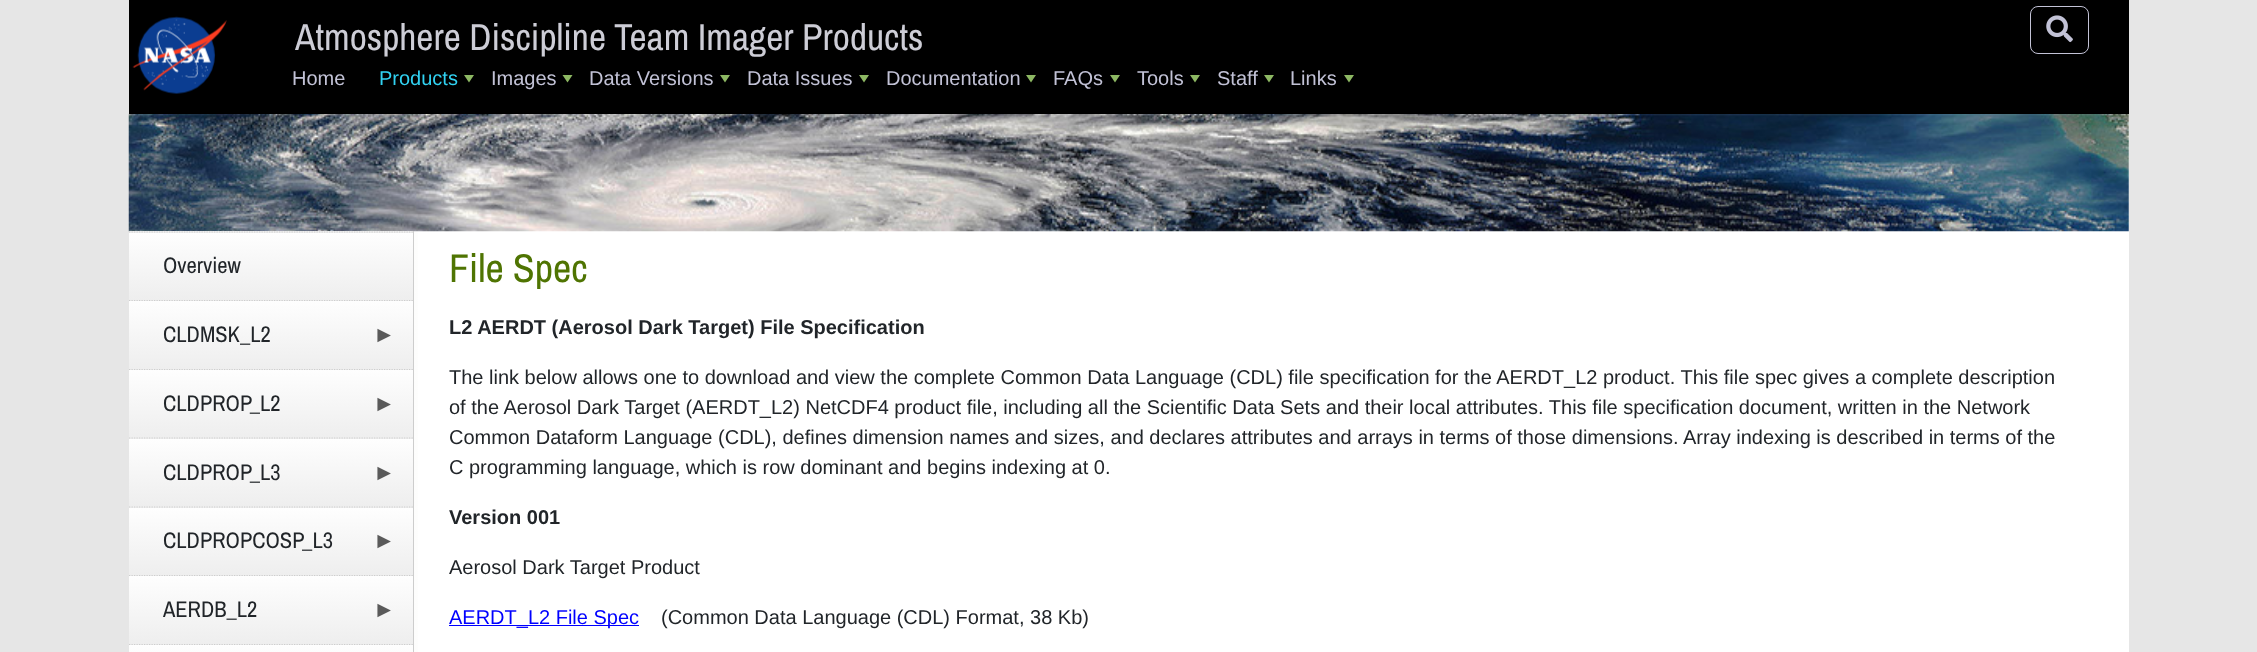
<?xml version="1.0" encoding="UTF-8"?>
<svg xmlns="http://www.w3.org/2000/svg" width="2257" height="652">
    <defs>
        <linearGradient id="g1" gradientUnits="userSpaceOnUse" x1="129" y1="610" x2="429" y2="610"><stop offset="0" stop-color="#EAEAE0" stop-opacity="0"/><stop offset="0.5" stop-color="#EAEAE0"/><stop offset="1" stop-color="#EAEAE0" stop-opacity="0"/></linearGradient>
        <linearGradient id="g2" gradientUnits="userSpaceOnUse" x1="271" y1="165" x2="271" y2="233"><stop offset="0" stop-color="#FEFEFE"/><stop offset="1" stop-color="#EEEEEE"/></linearGradient>
        <linearGradient id="g3" gradientUnits="userSpaceOnUse" x1="271" y1="233" x2="271" y2="300"><stop offset="0" stop-color="#FEFEFE"/><stop offset="1" stop-color="#EEEEEE"/></linearGradient>
        <linearGradient id="g4" gradientUnits="userSpaceOnUse" x1="271" y1="234" x2="271" y2="301"><stop offset="0" stop-color="#FEFEFE"/><stop offset="1" stop-color="#EEEEEE"/></linearGradient>
        <linearGradient id="g5" gradientUnits="userSpaceOnUse" x1="271" y1="301" x2="271" y2="369"><stop offset="0" stop-color="#FEFEFE"/><stop offset="1" stop-color="#EEEEEE"/></linearGradient>
        <linearGradient id="g6" gradientUnits="userSpaceOnUse" x1="271" y1="303" x2="271" y2="370"><stop offset="0" stop-color="#FEFEFE"/><stop offset="1" stop-color="#EEEEEE"/></linearGradient>
        <linearGradient id="g7" gradientUnits="userSpaceOnUse" x1="271" y1="370" x2="271" y2="438"><stop offset="0" stop-color="#FEFEFE"/><stop offset="1" stop-color="#EEEEEE"/></linearGradient>
        <linearGradient id="g8" gradientUnits="userSpaceOnUse" x1="271" y1="371" x2="271" y2="439"><stop offset="0" stop-color="#FEFEFE"/><stop offset="1" stop-color="#EEEEEE"/></linearGradient>
        <linearGradient id="g9" gradientUnits="userSpaceOnUse" x1="271" y1="439" x2="271" y2="506"><stop offset="0" stop-color="#FEFEFE"/><stop offset="1" stop-color="#EEEEEE"/></linearGradient>
        <linearGradient id="g10" gradientUnits="userSpaceOnUse" x1="271" y1="440" x2="271" y2="508"><stop offset="0" stop-color="#FEFEFE"/><stop offset="1" stop-color="#EEEEEE"/></linearGradient>
        <linearGradient id="g11" gradientUnits="userSpaceOnUse" x1="271" y1="508" x2="271" y2="575"><stop offset="0" stop-color="#FEFEFE"/><stop offset="1" stop-color="#EEEEEE"/></linearGradient>
        <linearGradient id="g12" gradientUnits="userSpaceOnUse" x1="271" y1="509" x2="271" y2="576"><stop offset="0" stop-color="#FEFEFE"/><stop offset="1" stop-color="#EEEEEE"/></linearGradient>
        <linearGradient id="g13" gradientUnits="userSpaceOnUse" x1="271" y1="576" x2="271" y2="644"><stop offset="0" stop-color="#FEFEFE"/><stop offset="1" stop-color="#EEEEEE"/></linearGradient>
        <linearGradient id="g14" gradientUnits="userSpaceOnUse" x1="271" y1="578" x2="271" y2="645"><stop offset="0" stop-color="#FEFEFE"/><stop offset="1" stop-color="#EEEEEE"/></linearGradient>
        <linearGradient id="g15" gradientUnits="userSpaceOnUse" x1="271" y1="645" x2="271" y2="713"><stop offset="0" stop-color="#FEFEFE"/><stop offset="1" stop-color="#EEEEEE"/></linearGradient>
    </defs>
    <rect width="100%" height="100%" fill="#E6E6E6"/>
    <rect x="414" y="114" width="1715" height="538" fill="#FFFFFF"/>
    <image x="128" y="113" width="2001" height="119" href="img_03.png"/>
    <rect x="129" y="0" width="2000" height="114" fill="#000000"/>
    <image x="132" y="16" width="95" height="78" href="img_01.png"/>
    <text x="295" y="50" font-family="Archivo Narrow" font-size="37.5" fill="#CDCDD6">Atmosphere Discipline Team Imager Products</text>
    <rect x="2030.5" y="6.5" width="58" height="47" rx="7.5" fill="none" stroke="#C2C2D6"/>
    <image x="2046" y="15" width="27" height="28" href="img_02.png"/>
    <text x="292" y="85" font-family="Liberation Sans" font-size="20" fill="#C2C2D6">Home</text>
    <text x="379" y="85" font-family="Liberation Sans" font-size="20" fill="#31D2F2">Products</text>
    <path d="M 464 75 H 474 L 469 82.5 Z" fill="#8DB863"/>
    <text x="491" y="85" font-family="Liberation Sans" font-size="20" fill="#C2C2D6">Images</text>
    <path d="M 562.5 75 H 572.5 L 567.5 82.5 Z" fill="#8DB863"/>
    <text x="589" y="85" font-family="Liberation Sans" font-size="20" fill="#C2C2D6">Data Versions</text>
    <path d="M 720 75 H 730 L 725 82.5 Z" fill="#8DB863"/>
    <text x="747" y="85" font-family="Liberation Sans" font-size="20" fill="#C2C2D6">Data Issues</text>
    <path d="M 859 75 H 869 L 864 82.5 Z" fill="#8DB863"/>
    <text x="886" y="85" font-family="Liberation Sans" font-size="20" fill="#C2C2D6">Documentation</text>
    <path d="M 1026 75 H 1036 L 1031 82.5 Z" fill="#8DB863"/>
    <text x="1053" y="85" font-family="Liberation Sans" font-size="20" fill="#C2C2D6">FAQs</text>
    <path d="M 1110 75 H 1120 L 1115 82.5 Z" fill="#8DB863"/>
    <text x="1137" y="85" font-family="Liberation Sans" font-size="20" fill="#C2C2D6">Tools</text>
    <path d="M 1190 75 H 1200 L 1195 82.5 Z" fill="#8DB863"/>
    <text x="1217" y="85" font-family="Liberation Sans" font-size="20" fill="#C2C2D6">Staff</text>
    <path d="M 1264 75 H 1274 L 1269 82.5 Z" fill="#8DB863"/>
    <text x="1290" y="85" font-family="Liberation Sans" font-size="20" fill="#C2C2D6">Links</text>
    <path d="M 1344 75 H 1354 L 1349 82.5 Z" fill="#8DB863"/>
    <rect x="414" y="232" width="4" height="420" fill="url(#g1)"/>
    <rect x="129" y="231" width="285" height="2" fill="url(#g2)"/>
    <rect x="129" y="233" width="284" height="67" fill="url(#g3)"/>
    <path d="M 129 232 H 414" fill="none" stroke="#CDCDCD" stroke-width="1.2" stroke-dasharray="1.25 1.25"/>
    <rect x="413" y="231" width="1" height="69" fill="#CDCDCD"/>
    <text x="163" y="273" font-family="Archivo Narrow" font-size="22.5" fill="#212529">Overview</text>
    <rect x="129" y="300" width="285" height="1" fill="url(#g4)"/>
    <rect x="129" y="301" width="284" height="68" fill="url(#g5)"/>
    <path d="M 129 300.5 H 414" fill="none" stroke="#CDCDCD" stroke-width="1.2" stroke-dasharray="1.25 1.25"/>
    <rect x="413" y="300" width="1" height="69" fill="#CDCDCD"/>
    <text x="163" y="342" font-family="Archivo Narrow" font-size="22.5" fill="#212529">CLDMSK_L2</text>
    <text x="373" y="342" font-family="Liberation Sans" font-size="22.5" fill="#5A5A5A">►</text>
    <rect x="129" y="369" width="285" height="1" fill="url(#g6)"/>
    <rect x="129" y="370" width="284" height="68" fill="url(#g7)"/>
    <path d="M 129 369.5 H 414" fill="none" stroke="#CDCDCD" stroke-width="1.2" stroke-dasharray="1.25 1.25"/>
    <rect x="413" y="369" width="1" height="69" fill="#CDCDCD"/>
    <text x="163" y="411" font-family="Archivo Narrow" font-size="22.5" fill="#212529">CLDPROP_L2</text>
    <text x="373" y="411" font-family="Liberation Sans" font-size="22.5" fill="#5A5A5A">►</text>
    <rect x="129" y="438" width="285" height="1" fill="url(#g8)"/>
    <rect x="129" y="439" width="284" height="67" fill="url(#g9)"/>
    <path d="M 129 438 H 414" fill="none" stroke="#CDCDCD" stroke-width="1.2" stroke-dasharray="1.25 1.25"/>
    <rect x="413" y="438" width="1" height="68" fill="#CDCDCD"/>
    <text x="163" y="480" font-family="Archivo Narrow" font-size="22.5" fill="#212529">CLDPROP_L3</text>
    <text x="373" y="480" font-family="Liberation Sans" font-size="22.5" fill="#5A5A5A">►</text>
    <rect x="129" y="506" width="285" height="2" fill="url(#g10)"/>
    <rect x="129" y="508" width="284" height="67" fill="url(#g11)"/>
    <path d="M 129 507 H 414" fill="none" stroke="#CDCDCD" stroke-width="1.2" stroke-dasharray="1.25 1.25"/>
    <rect x="413" y="506" width="1" height="69" fill="#CDCDCD"/>
    <text x="163" y="548" font-family="Archivo Narrow" font-size="22.5" fill="#212529">CLDPROPCOSP_L3</text>
    <text x="373" y="548" font-family="Liberation Sans" font-size="22.5" fill="#5A5A5A">►</text>
    <rect x="129" y="575" width="285" height="1" fill="url(#g12)"/>
    <rect x="129" y="576" width="284" height="68" fill="url(#g13)"/>
    <path d="M 129 575.5 H 414" fill="none" stroke="#CDCDCD" stroke-width="1.2" stroke-dasharray="1.25 1.25"/>
    <rect x="413" y="575" width="1" height="69" fill="#CDCDCD"/>
    <text x="163" y="617" font-family="Archivo Narrow" font-size="22.5" fill="#212529">AERDB_L2</text>
    <text x="373" y="617" font-family="Liberation Sans" font-size="22.5" fill="#5A5A5A">►</text>
    <rect x="129" y="644" width="285" height="1" fill="url(#g14)"/>
    <rect x="129" y="645" width="285" height="7" fill="url(#g15)"/>
    <path d="M 129 644.5 H 414" fill="none" stroke="#CDCDCD" stroke-width="1.2" stroke-dasharray="1.25 1.25"/>
    <rect x="413" y="644" width="1" height="8" fill="#CDCDCD"/>
    <text x="449" y="282" font-family="Archivo Narrow" font-size="40" fill="#4F7402">File Spec</text>
    <text x="449" y="334" font-family="Liberation Sans" font-size="20" font-weight="700" fill="#212529">L2 AERDT (Aerosol Dark Target) File Specification</text>
    <text font-family="Liberation Sans" font-size="20" fill="#212529">
        <tspan x="449" y="384">The link below allows one to download and view the complete Common Data Language (CDL) file specification for the AERDT_L2 product. This file spec gives a complete description</tspan>
        <tspan x="449" y="414">of the Aerosol Dark Target (AERDT_L2) NetCDF4 product file, including all the Scientific Data Sets and their local attributes. This file specification document, written in the Network</tspan>
        <tspan x="449" y="444">Common Dataform Language (CDL), defines dimension names and sizes, and declares attributes and arrays in terms of those dimensions. Array indexing is described in terms of the</tspan>
        <tspan x="449" y="474">C programming language, which is row dominant and begins indexing at 0.</tspan>
    </text>
    <text x="449" y="524" font-family="Liberation Sans" font-size="20" font-weight="700" fill="#212529">Version 001</text>
    <text x="449" y="574" font-family="Liberation Sans" font-size="20" fill="#212529">Aerosol Dark Target Product</text>
    <rect x="449" y="625" width="190" height="1" fill="#0000FF"/>
    <text x="449" y="624" font-family="Liberation Sans" font-size="20" fill="#0000FF">AERDT_L2 File Spec</text>
    <text x="661" y="624" font-family="Liberation Sans" font-size="20" fill="#212529">(Common Data Language (CDL) Format, 38 Kb)</text>
</svg>
